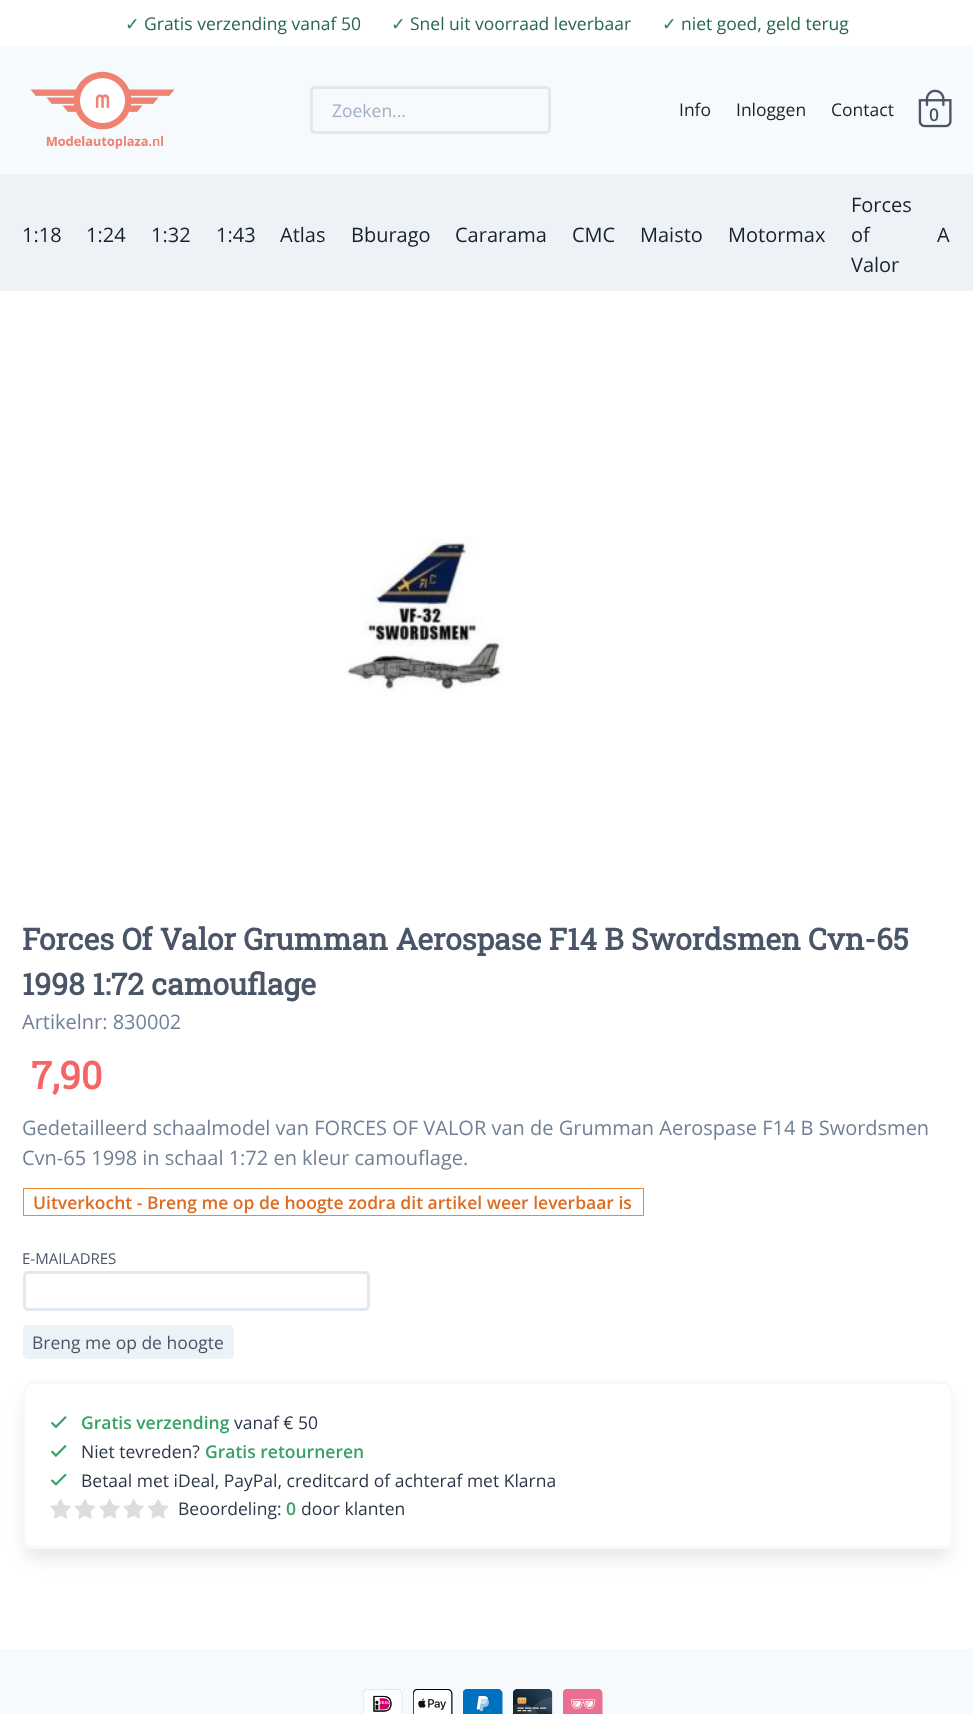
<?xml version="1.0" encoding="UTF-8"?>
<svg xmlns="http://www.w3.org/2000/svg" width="973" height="1714">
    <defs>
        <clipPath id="clip1"><path d="M 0 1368 H 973 V 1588 H 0 Z M 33 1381 H 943 C 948.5 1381 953 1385.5 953 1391 V 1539 C 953 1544.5 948.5 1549 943 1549 H 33 C 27.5 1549 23 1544.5 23 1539 V 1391 C 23 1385.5 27.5 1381 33 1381 Z" clip-rule="evenodd"/></clipPath>
        <filter id="blur1" x="-50%" y="-200%" width="200%" height="500%"><feGaussianBlur stdDeviation="9.5"/></filter>
    </defs>
    <rect width="100%" height="100%" fill="#FFFFFF"/>
    <text x="125" y="30" font-family="DejaVu Sans" font-size="17.5" fill="#2F855A">✓</text>
    <text x="144" y="30" font-family="Open Sans" font-size="17.5" fill="#276749">Gratis verzending vanaf 50</text>
    <text x="391" y="30" font-family="DejaVu Sans" font-size="17.5" fill="#2F855A">✓</text>
    <text x="410" y="30" font-family="Open Sans" font-size="17.5" fill="#276749">Snel uit voorraad leverbaar</text>
    <text x="662" y="30" font-family="DejaVu Sans" font-size="17.5" fill="#2F855A">✓</text>
    <text x="681" y="30" font-family="Open Sans" font-size="17.5" fill="#276749">niet goed, geld terug</text>
    <rect x="0" y="46" width="973" height="128" fill="#F7FAFC"/>
    <image x="30" y="71" width="145" height="78" href="img_01.png"/>
    <rect x="311.5" y="87.5" width="238" height="45" rx="3.5" fill="none" stroke="#E2E8F0" stroke-width="3"/>
    <text x="332" y="117" font-family="Open Sans" font-size="17.5" fill="#A0AEC0">Zoeken...</text>
    <text x="679" y="116" font-family="Open Sans" font-size="17.5" fill="#1A202C">Info</text>
    <text x="736" y="116" font-family="Open Sans" font-size="17.5" fill="#1A202C">Inloggen</text>
    <text x="831" y="116" font-family="Open Sans" font-size="17.5" fill="#1A202C">Contact</text>
    <image x="918" y="89" width="34" height="39" href="img_02.png"/>
    <text x="929" y="121" font-family="Open Sans" font-size="17.5" font-weight="600" fill="#4A5568">0</text>
    <rect x="0" y="174" width="973" height="117" fill="#EDF2F7"/>
    <text x="22" y="242" font-family="Open Sans" font-size="20" fill="#1A202C">1:18</text>
    <text x="86" y="242" font-family="Open Sans" font-size="20" fill="#1A202C">1:24</text>
    <text x="151" y="242" font-family="Open Sans" font-size="20" fill="#1A202C">1:32</text>
    <text x="216" y="242" font-family="Open Sans" font-size="20" fill="#1A202C">1:43</text>
    <text x="280" y="242" font-family="Open Sans" font-size="20" fill="#1A202C">Atlas</text>
    <text x="351" y="242" font-family="Open Sans" font-size="20" fill="#1A202C">Bburago</text>
    <text x="455" y="242" font-family="Open Sans" font-size="20" fill="#1A202C">Cararama</text>
    <text x="572" y="242" font-family="Open Sans" font-size="20" fill="#1A202C">CMC</text>
    <text x="640" y="242" font-family="Open Sans" font-size="20" fill="#1A202C">Maisto</text>
    <text x="728" y="242" font-family="Open Sans" font-size="20" fill="#1A202C">Motormax</text>
    <text font-family="Open Sans" font-size="20" fill="#1A202C">
        <tspan x="851" y="212">Forces</tspan>
        <tspan x="851" y="242">of</tspan>
        <tspan x="851" y="272">Valor</tspan>
    </text>
    <text x="937" y="242" font-family="Open Sans" font-size="20" fill="#1A202C">A</text>
    <image x="344" y="536" width="159" height="158" href="img_03.png"/>
    <text font-family="Roboto Slab" font-size="30" font-weight="700" fill="#4A5568">
        <tspan x="22" y="950">Forces Of Valor Grumman Aerospase F14 B Swordsmen Cvn-65</tspan>
        <tspan x="22" y="995">1998 1:72 camouflage</tspan>
    </text>
    <text x="22" y="1029" font-family="Open Sans" font-size="20" fill="#718096">Artikelnr: 830002</text>
    <text x="31" y="1089" font-family="Roboto Slab" font-size="38" font-weight="700" fill="#F56565">7,90</text>
    <text font-family="Open Sans" font-size="20" fill="#718096">
        <tspan x="22" y="1135">Gedetailleerd schaalmodel van FORCES OF VALOR van de Grumman Aerospase F14 B Swordsmen</tspan>
        <tspan x="22" y="1165">Cvn-65 1998 in schaal 1:72 en kleur camouflage.</tspan>
    </text>
    <rect x="23.5" y="1188.5" width="620" height="27" fill="none" stroke="#ED8936"/>
    <text x="33" y="1209" font-family="Open Sans" font-size="17.5" font-weight="600" fill="#DD6B20">Uitverkocht - Breng me op de hoogte zodra dit artikel weer leverbaar is</text>
    <text x="22" y="1264" font-family="Open Sans" font-size="15" fill="#4A5568">E-MAILADRES</text>
    <rect x="24.5" y="1272.5" width="344" height="37" rx="3.5" fill="none" stroke="#E2E8F0" stroke-width="3"/>
    <rect x="23" y="1325" width="211" height="34" rx="5" fill="#EDF2F7"/>
    <text x="32" y="1349" font-family="Open Sans" font-size="17.5" fill="#4A5568">Breng me op de hoogte</text>
    <g clip-path="url(#clip1)">
        <rect x="26" y="1398" width="923" height="160" rx="6" fill="#000000" fill-opacity="0.1" filter="url(#blur1)"/>
    </g>
    <rect x="24.5" y="1382.5" width="927" height="165" rx="8.5" fill="none" stroke="#F7FAFC" stroke-width="3"/>
    <image x="51" y="1416" width="16" height="13" href="img_04.png"/>
    <text x="81" y="1429" font-family="Open Sans" font-size="17.5" font-weight="600" fill="#38A169">Gratis verzending</text>
    <text x="234" y="1429" font-family="Open Sans" font-size="17.5" fill="#2D3748">vanaf € 50</text>
    <image x="51" y="1444" width="16" height="13" href="img_05.png"/>
    <text x="81" y="1458" font-family="Open Sans" font-size="17.5" fill="#2D3748">Niet tevreden?</text>
    <text x="205" y="1458" font-family="Open Sans" font-size="17.5" font-weight="600" fill="#38A169">Gratis retourneren</text>
    <image x="51" y="1473" width="16" height="13" href="img_06.png"/>
    <text x="81" y="1487" font-family="Open Sans" font-size="17.5" fill="#2D3748">Betaal met iDeal, PayPal, creditcard of achteraf met Klarna</text>
    <image x="50" y="1499" width="118" height="20" href="img_07.png"/>
    <text x="178" y="1515" font-family="Open Sans" font-size="17.5" fill="#2D3748">Beoordeling:</text>
    <text x="286" y="1515" font-family="Open Sans" font-size="17.5" font-weight="600" fill="#38A169">0</text>
    <text x="301" y="1515" font-family="Open Sans" font-size="17.5" fill="#2D3748">door klanten</text>
    <rect x="0" y="1649" width="973" height="65" fill="#F7FAFC"/>
    <image x="363" y="1689" width="40" height="25" href="img_08.png"/>
    <image x="413" y="1689" width="40" height="25" href="img_09.png"/>
    <image x="463" y="1689" width="40" height="25" href="img_10.png"/>
    <image x="513" y="1689" width="40" height="25" href="img_11.png"/>
    <image x="563" y="1689" width="40" height="25" href="img_12.png"/>
</svg>
